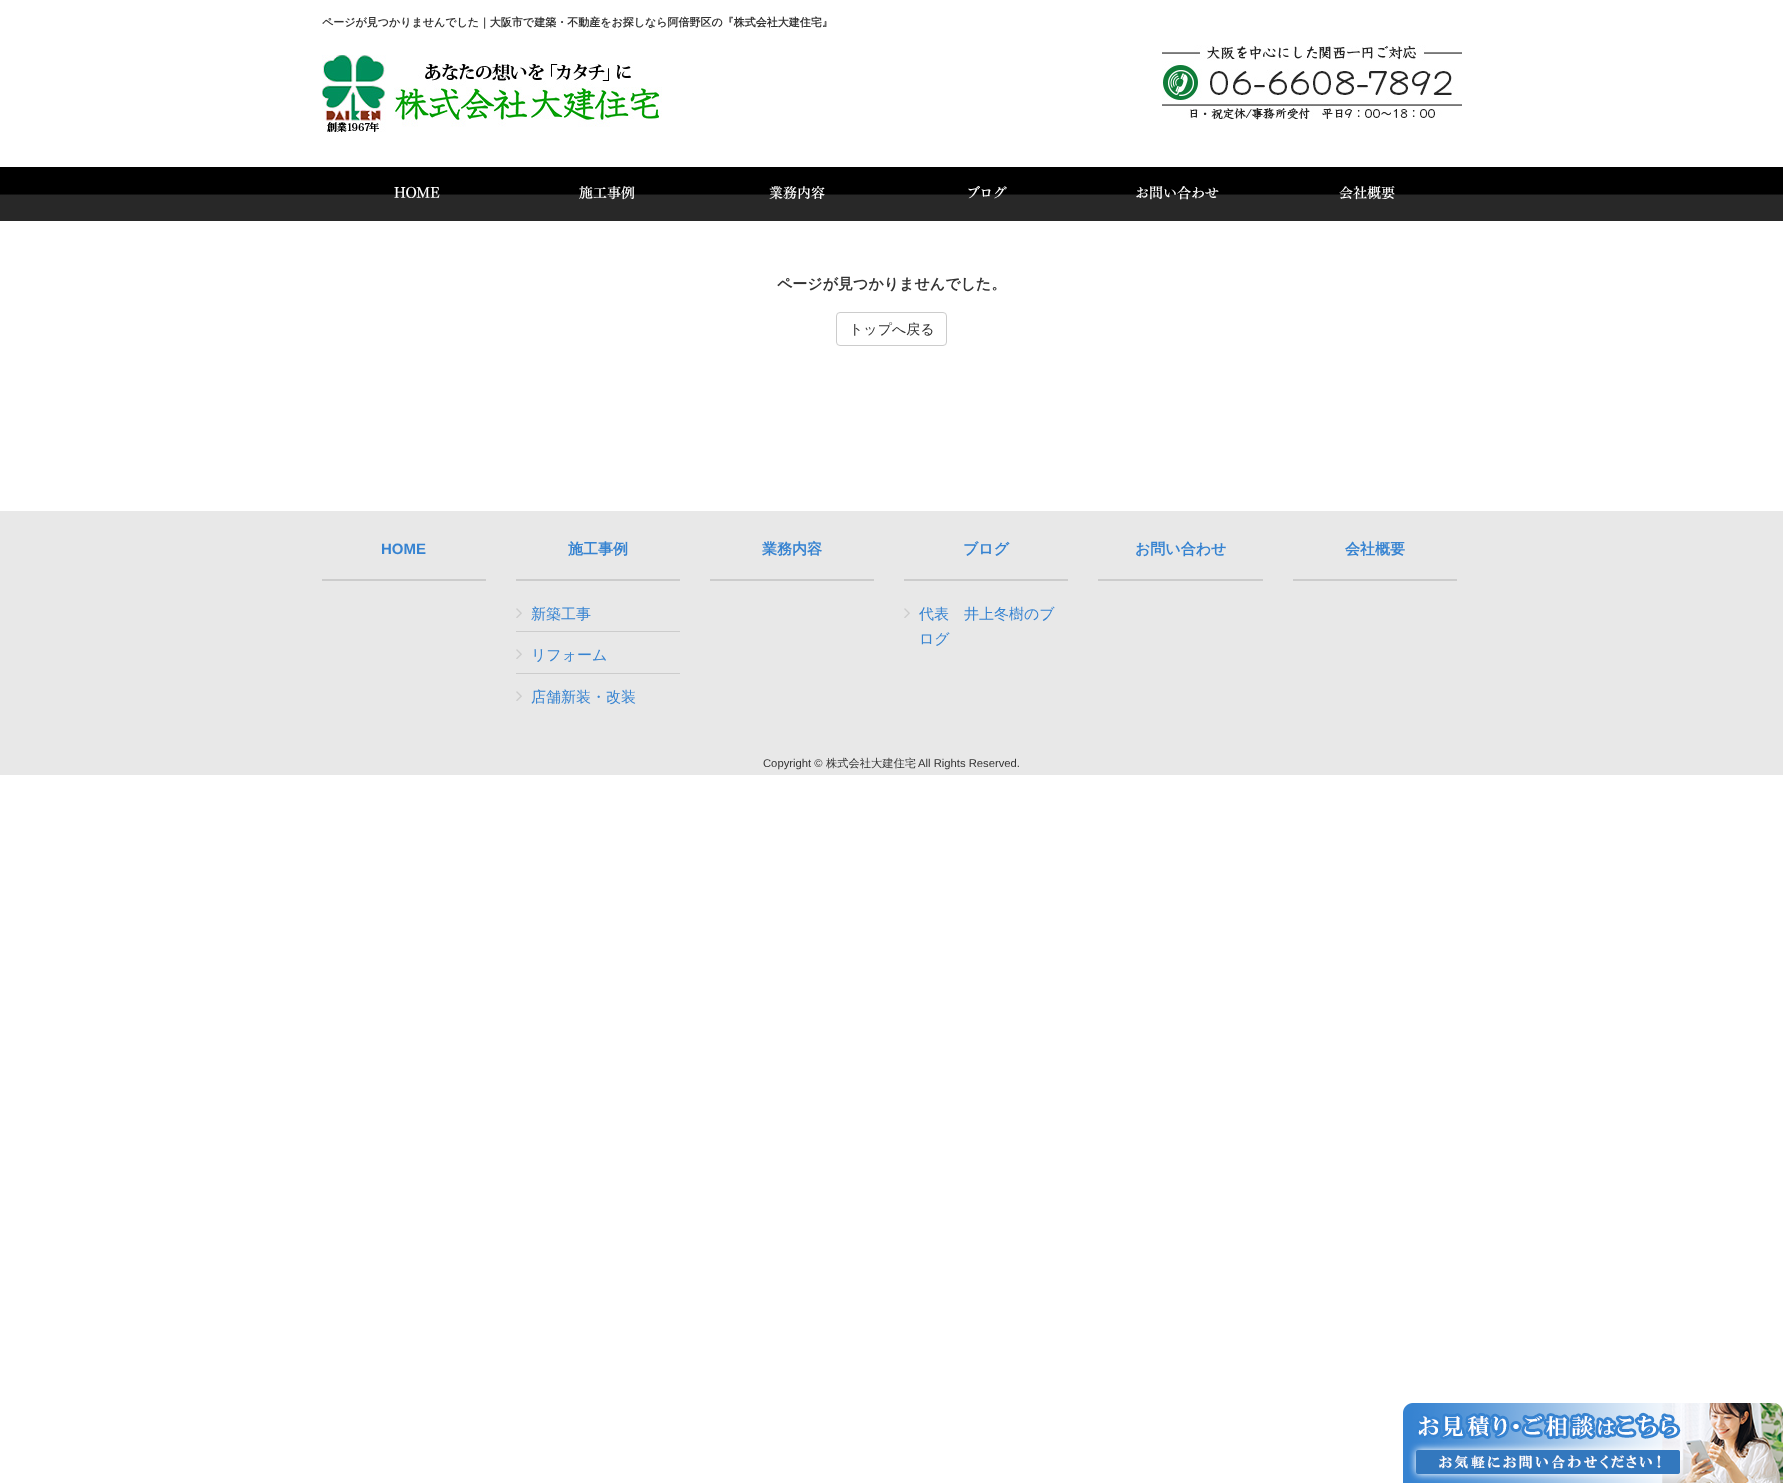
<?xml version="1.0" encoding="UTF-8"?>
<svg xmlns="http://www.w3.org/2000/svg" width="1783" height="1483">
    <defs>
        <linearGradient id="g1" gradientUnits="userSpaceOnUse" x1="892" y1="167" x2="892" y2="221"><stop offset="0" stop-color="#000000"/><stop offset="0.5" stop-color="#000000"/><stop offset="0.52" stop-color="#282828"/></linearGradient>
    </defs>
    <rect width="100%" height="100%" fill="#FFFFFF"/>
    <text x="322" y="26" font-family="WenQuanYi Zen Hei" font-size="11" font-weight="700" fill="#333333">ページが見つかりませんでした｜大阪市で建築・不動産をお探しなら阿倍野区の『株式会社大建住宅』</text>
    <image x="322" y="55" width="340" height="77" href="img_01.png"/>
    <image x="1162" y="45" width="300" height="75" href="img_02.png"/>
    <rect x="0" y="167" width="1783" height="54" fill="url(#g1)"/>
    <text x="394" y="198" font-family="'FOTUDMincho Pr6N'" font-size="14" font-weight="600" fill="#FFFFFF">HOME</text>
    <text x="579" y="198" font-family="'FOTUDMincho Pr6N'" font-size="14" font-weight="600" fill="#FFFFFF">施工事例</text>
    <text x="769" y="198" font-family="'FOTUDMincho Pr6N'" font-size="14" font-weight="600" fill="#FFFFFF">業務内容</text>
    <text x="966" y="198" font-family="'FOTUDMincho Pr6N'" font-size="14" font-weight="600" fill="#FFFFFF">ブログ</text>
    <text x="1135" y="198" font-family="'FOTUDMincho Pr6N'" font-size="14" font-weight="600" fill="#FFFFFF">お問い合わせ</text>
    <text x="1339" y="198" font-family="'FOTUDMincho Pr6N'" font-size="14" font-weight="600" fill="#FFFFFF">会社概要</text>
    <text x="777" y="289" font-family="WenQuanYi Zen Hei" font-size="15" font-weight="700" fill="#333333">ページが見つかりませんでした。</text>
    <rect x="836.5" y="312.5" width="110" height="33" rx="3.5" fill="none" stroke="#CCCCCC"/>
    <text x="849" y="334" font-family="WenQuanYi Zen Hei" font-size="14" font-weight="500" fill="#333333">トップへ戻る</text>
    <rect x="0" y="511" width="1783" height="264" fill="#E8E8E8"/>
    <rect x="322" y="579" width="164" height="2" fill="#CCCCCC"/>
    <text x="381" y="554" font-family="Liberation Sans" font-size="15" font-weight="700" fill="#3683D1">HOME</text>
    <rect x="516" y="579" width="164" height="2" fill="#CCCCCC"/>
    <text x="568" y="554" font-family="WenQuanYi Zen Hei" font-size="15" font-weight="700" fill="#3683D1">施工事例</text>
    <rect x="516" y="631" width="164" height="1" fill="#CCCCCC"/>
    <image x="516" y="608" width="6" height="10" href="img_03.png"/>
    <text x="531" y="619" font-family="WenQuanYi Zen Hei" font-size="15" font-weight="500" fill="#3683D1">新築工事</text>
    <rect x="516" y="673" width="164" height="1" fill="#CCCCCC"/>
    <image x="516" y="649" width="6" height="10" href="img_03.png"/>
    <text x="531" y="660" font-family="WenQuanYi Zen Hei" font-size="15" font-weight="500" fill="#3683D1">リフォーム</text>
    <image x="516" y="691" width="6" height="10" href="img_03.png"/>
    <text x="531" y="702" font-family="WenQuanYi Zen Hei" font-size="15" font-weight="500" fill="#3683D1">店舗新装・改装</text>
    <rect x="710" y="579" width="164" height="2" fill="#CCCCCC"/>
    <text x="762" y="554" font-family="WenQuanYi Zen Hei" font-size="15" font-weight="700" fill="#3683D1">業務内容</text>
    <rect x="904" y="579" width="164" height="2" fill="#CCCCCC"/>
    <text x="963" y="554" font-family="WenQuanYi Zen Hei" font-size="15" font-weight="700" fill="#3683D1">ブログ</text>
    <image x="904" y="608" width="6" height="10" href="img_03.png"/>
    <text font-family="WenQuanYi Zen Hei" font-size="15" font-weight="500" fill="#3683D1">
        <tspan x="919" y="619">代表　井上冬樹のブ</tspan>
        <tspan x="919" y="644">ログ</tspan>
    </text>
    <rect x="1098" y="579" width="165" height="2" fill="#CCCCCC"/>
    <text x="1135" y="554" font-family="WenQuanYi Zen Hei" font-size="15" font-weight="700" fill="#3683D1">お問い合わせ</text>
    <rect x="1293" y="579" width="164" height="2" fill="#CCCCCC"/>
    <text x="1345" y="554" font-family="WenQuanYi Zen Hei" font-size="15" font-weight="700" fill="#3683D1">会社概要</text>
    <text x="763" y="767" font-family="Liberation Sans" font-size="11.25" fill="#333333">Copyright ©</text>
    <text x="826" y="767" font-family="WenQuanYi Zen Hei" font-size="11.25" font-weight="500" fill="#333333">株式会社大建住宅</text>
    <text x="918" y="767" font-family="Liberation Sans" font-size="11.25" fill="#333333">All Rights Reserved.</text>
    <image x="1403" y="1403" width="380" height="80" href="img_04.png"/>
</svg>
